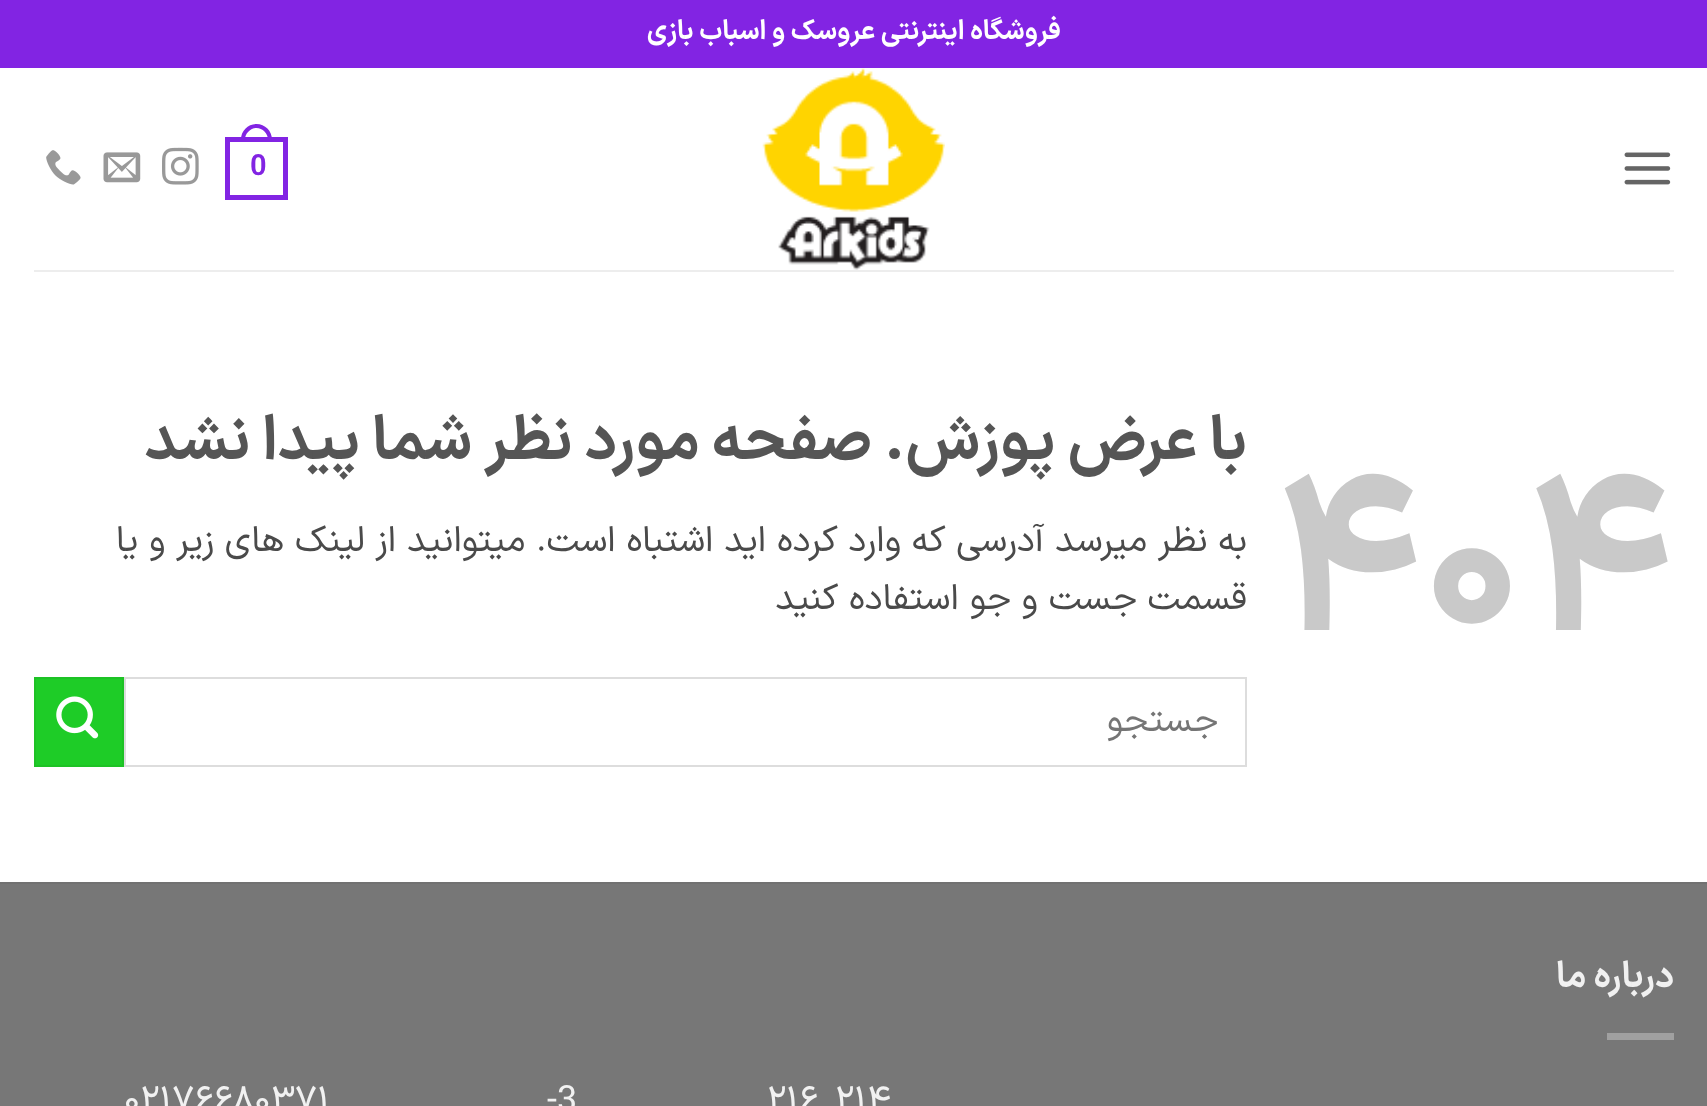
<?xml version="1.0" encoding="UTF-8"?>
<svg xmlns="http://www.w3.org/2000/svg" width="1707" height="1106">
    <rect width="100%" height="100%" fill="#FFFFFF"/>
    <rect x="0" y="0" width="1707" height="68" fill="#8224E3"/>
    <text x="1061" y="39" font-family="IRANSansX" font-size="27" font-weight="700" direction="rtl" fill="#FFFFFF">فروشگاه اینترنتی عروسک و اسباب بازی</text>
    <image x="1624" y="152" width="47" height="33" href="img_01.png"/>
    <image x="762" y="68" width="183" height="202" href="img_02.png"/>
    <rect x="227.5" y="139.5" width="58" height="58" fill="none" stroke="#8224E3" stroke-width="5"/>
    <path d="M 256.5 124 C 265 124 272 131 272 139.5 V 142 H 241 V 139.5 C 241 131 248 124 256.5 124 Z M 256.5 128 C 262.5 128 268 133.5 268 139.5 V 142 H 245 V 139.5 C 245 133.5 250.5 128 256.5 128 Z" fill="#8224E3" fill-rule="evenodd"/>
    <text x="250" y="175" font-family="IRANSansX" font-size="29" font-weight="700" fill="#8224E3">0</text>
    <image x="162" y="147" width="37" height="38" href="img_03.png"/>
    <image x="103" y="152" width="38" height="31" href="img_04.png"/>
    <image x="46" y="150" width="35" height="35" href="img_05.png"/>
    <rect x="34" y="270" width="1640" height="2" fill="#EDEDED"/>
    <text x="1274" y="630" font-family="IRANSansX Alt" font-size="216" font-weight="700" fill="#C9C9C9">404</text>
    <text x="1247" y="459" word-spacing="-0.5" font-family="IRANSansX" font-size="61.25" font-weight="700" direction="rtl" fill="#555555">با عرض پوزش. صفحه مورد نظر شما پیدا نشد</text>
    <text font-family="IRANSansX" font-size="36" direction="rtl" fill="#4A4A4A">
        <tspan x="1247" y="551">به نظر میرسد آدرسی که وارد کرده اید اشتباه است. میتوانید از لینک های زیر و یا</tspan>
        <tspan x="1247" y="609">قسمت جست و جو استفاده کنید</tspan>
    </text>
    <rect x="125" y="678" width="1121" height="88" fill="none" stroke="#DDDDDD" stroke-width="2"/>
    <text x="1218" y="731" font-family="IRANSansX" font-size="36" direction="rtl" fill="#757575">جستجو</text>
    <rect x="35" y="678" width="88" height="88" fill="#1ECC27" stroke="#1DC225" stroke-width="2"/>
    <image x="56" y="696" width="43" height="43" href="img_06.png"/>
    <rect x="0" y="884" width="1707" height="222" fill="#777777"/>
    <rect x="0" y="882" width="1707" height="2" fill="#717171"/>
    <text x="1674" y="987" font-family="IRANSansX" font-size="36" font-weight="700" direction="rtl" fill="#F1F1F1">درباره ما</text>
    <rect x="1607" y="1033" width="67" height="7" fill="#A0A0A0"/>
    <text x="835" y="1111" font-family="IRANSansX Alt" font-size="36" fill="#F1F1F1">214</text>
    <text x="767" y="1111" font-family="IRANSansX Alt" font-size="36" fill="#F1F1F1">216</text>
    <text x="547" y="1111" font-family="IRANSansX" font-size="36" fill="#F1F1F1">-3</text>
    <text x="124" y="1111" font-family="IRANSansX Alt" font-size="36" fill="#F1F1F1">02176680371</text>
</svg>
